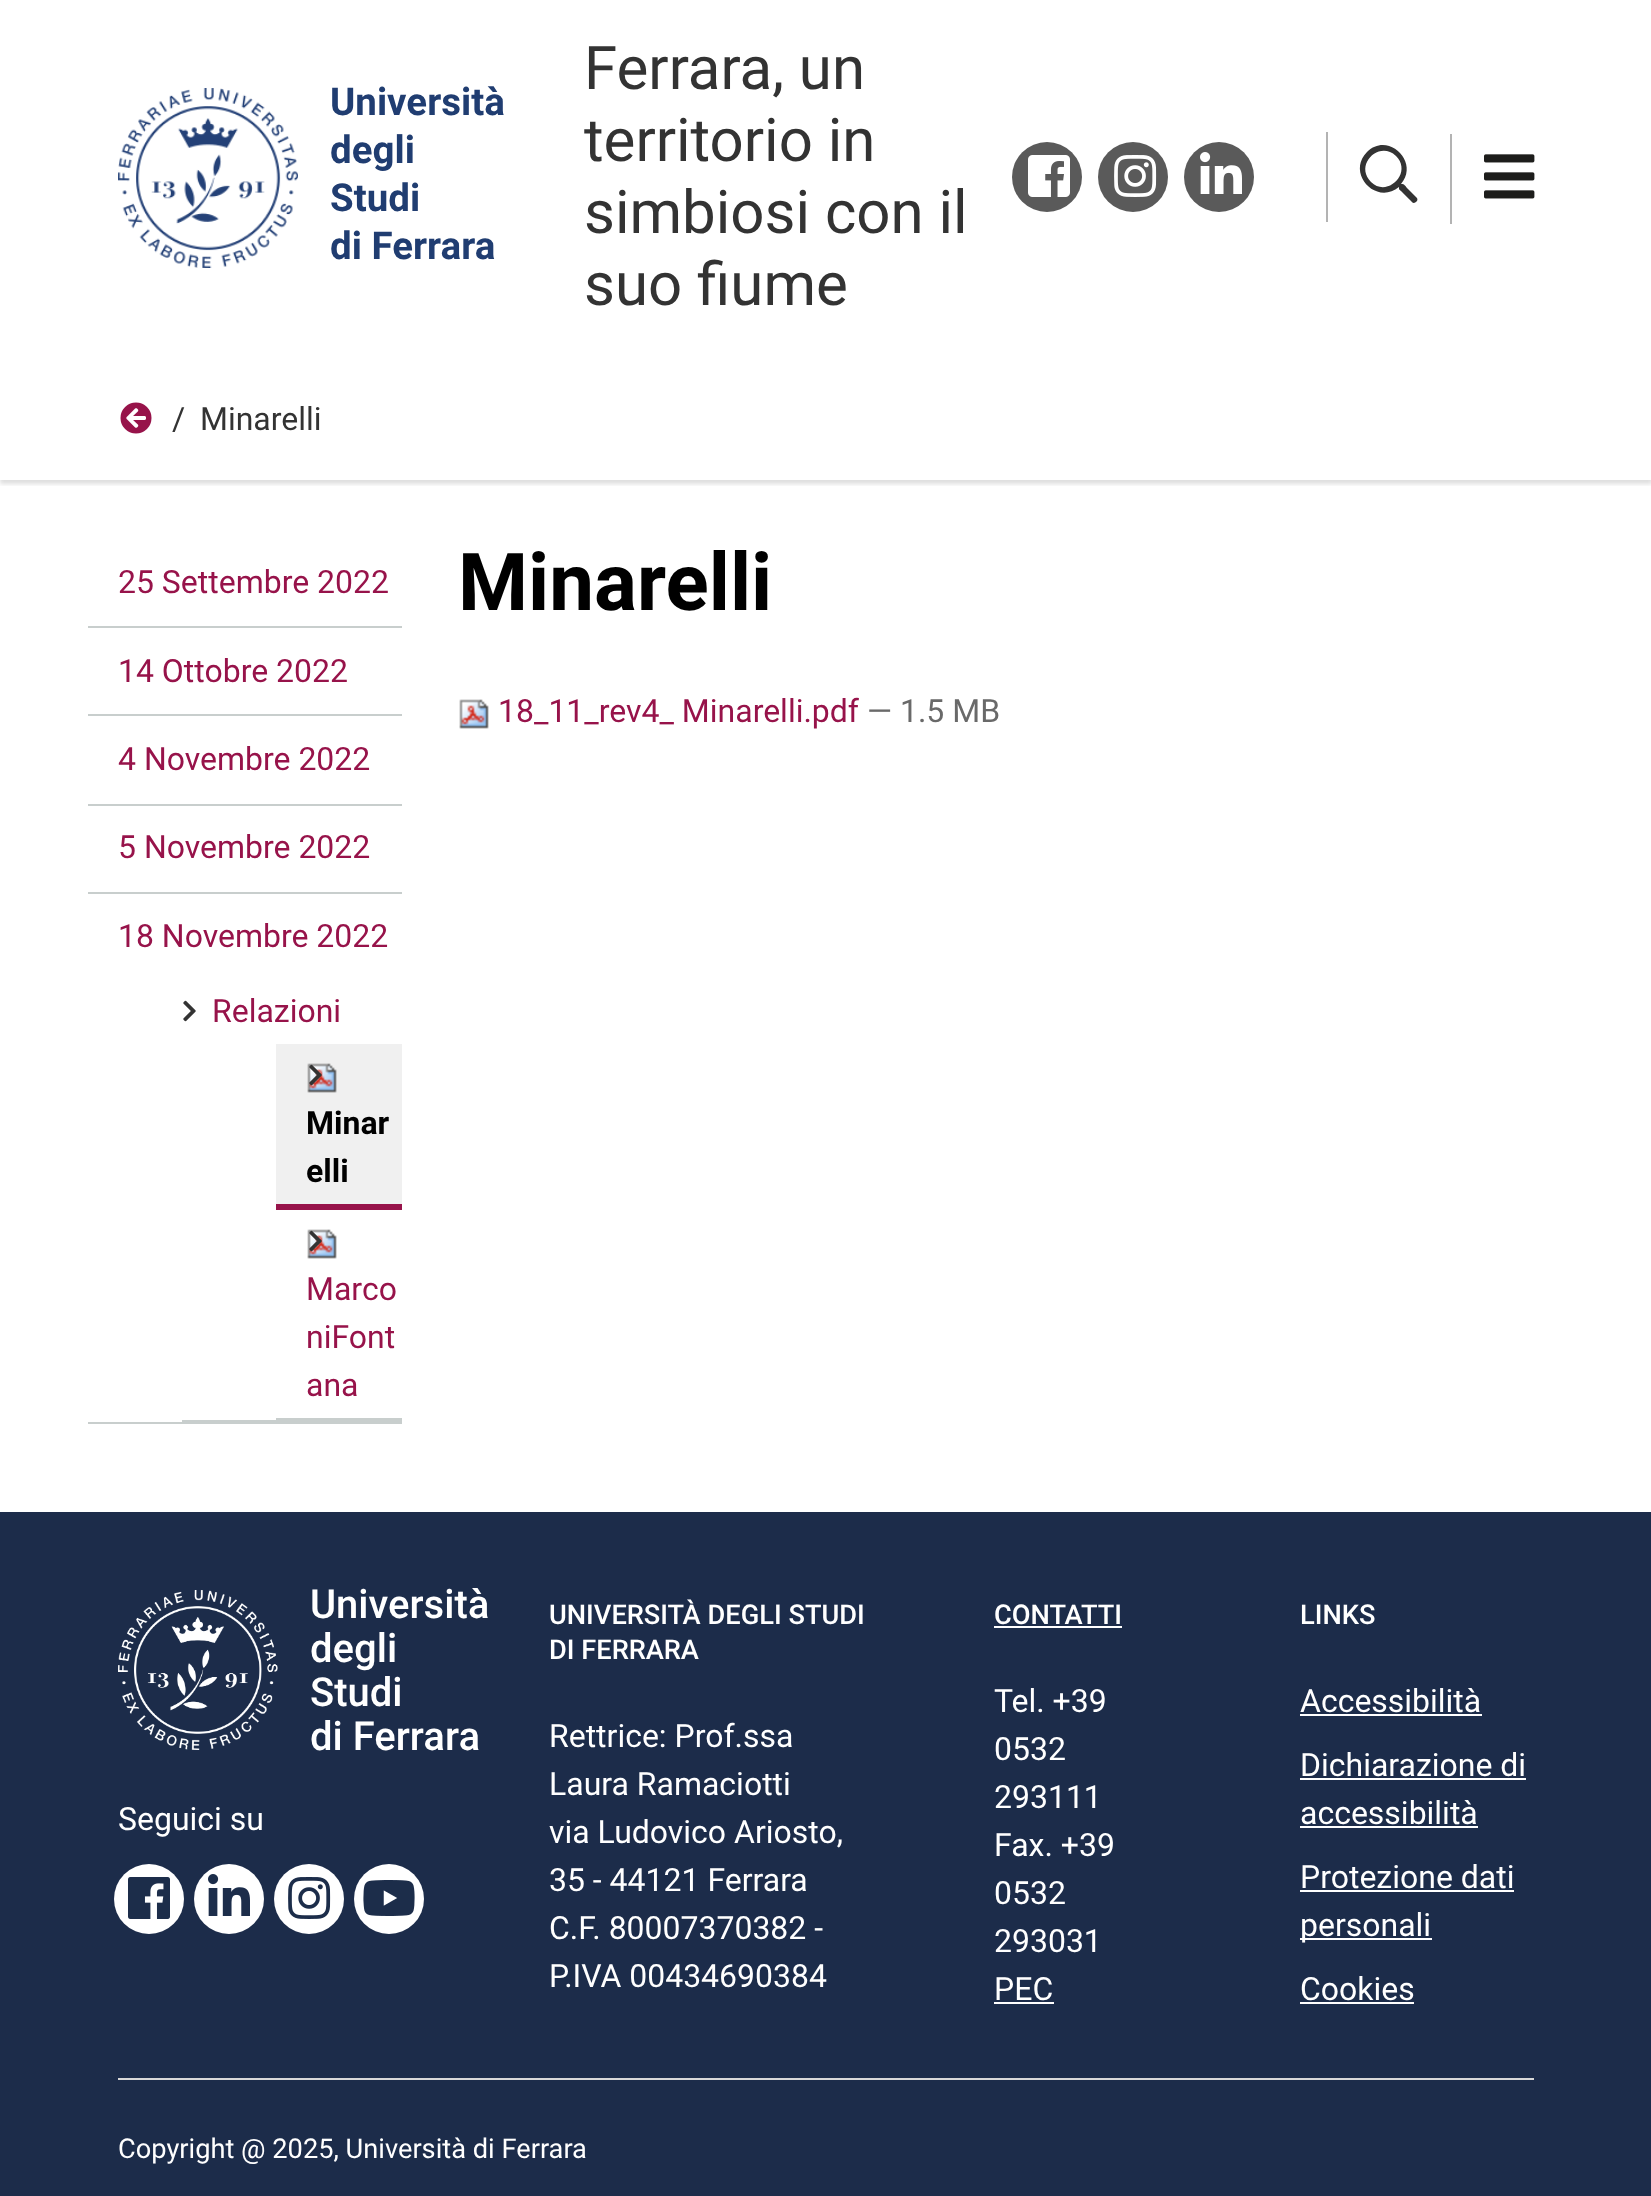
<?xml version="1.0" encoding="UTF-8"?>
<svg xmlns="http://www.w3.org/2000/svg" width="1651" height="2196">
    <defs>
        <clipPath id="clip1"><rect x="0" y="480" width="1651" height="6"/></clipPath>
        <filter id="blur1" x="-50%" y="-200%" width="200%" height="500%"><feGaussianBlur stdDeviation="2"/></filter>
    </defs>
    <rect width="100%" height="100%" fill="#FFFFFF"/>
    <image x="118" y="88" width="180" height="180" href="img_01.png"/>
    <text font-family="Roboto" font-size="38.5" font-weight="700" fill="#203D71">
        <tspan x="330" y="115">Università</tspan>
        <tspan x="330" y="163">degli</tspan>
        <tspan x="330" y="211">Studi</tspan>
        <tspan x="330" y="259">di Ferrara</tspan>
    </text>
    <text font-family="Roboto" font-size="60" fill="#333333">
        <tspan x="584" y="89">Ferrara, un</tspan>
        <tspan x="584" y="161">territorio in</tspan>
        <tspan x="584" y="233">simbiosi con il</tspan>
        <tspan x="584" y="305">suo fiume</tspan>
    </text>
    <circle cx="1047" cy="177" r="35" fill="#5A5A5A"/>
    <image x="1028" y="155" width="42" height="42" href="img_02.png"/>
    <circle cx="1133" cy="177" r="35" fill="#5A5A5A"/>
    <image x="1114" y="155" width="43" height="42" href="img_03.png"/>
    <circle cx="1219" cy="177" r="35" fill="#5A5A5A"/>
    <image x="1200" y="152" width="42" height="42" href="img_04.png"/>
    <rect x="1326" y="132" width="2" height="90" fill="#B3B3B3"/>
    <path d="M 1417 198 C 1418 200 1417 201 1416 202 C 1413 204 1413 203 1410 200 L 1401 191 C 1399 189 1399 190 1399 187 C 1376 206 1346 173 1367 152 C 1388 131 1420 162 1401 184 C 1405 184 1405 186 1408 189 Z M 1371 182 C 1387 198 1413 173 1396 156 C 1379 140 1354 165 1371 182 Z" fill="#333333"/>
    <rect x="1450" y="134" width="2" height="90" fill="#B3B3B3"/>
    <image x="1484" y="154" width="51" height="45" href="img_05.png"/>
    <g clip-path="url(#clip1)">
        <rect x="0" y="370" width="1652" height="114" fill="#000000" fill-opacity="0.13" filter="url(#blur1)"/>
    </g>
    <image x="120" y="402" width="32" height="32" href="img_06.png"/>
    <text x="172" y="430" font-family="Roboto" font-size="32" fill="#333333">/</text>
    <text x="200" y="430" font-family="Roboto" font-size="32" fill="#333333">Minarelli</text>
    <rect x="88" y="626" width="314" height="2" fill="#C8CECD"/>
    <text x="118" y="593" font-family="Roboto" font-size="32" fill="#97134A">25 Settembre 2022</text>
    <rect x="88" y="714" width="314" height="2" fill="#C8CECD"/>
    <text x="118" y="682" font-family="Roboto" font-size="32" fill="#97134A">14 Ottobre 2022</text>
    <rect x="88" y="804" width="314" height="2" fill="#C8CECD"/>
    <text x="118" y="770" font-family="Roboto" font-size="32" fill="#97134A">4 Novembre 2022</text>
    <rect x="88" y="892" width="314" height="2" fill="#C8CECD"/>
    <text x="118" y="858" font-family="Roboto" font-size="32" fill="#97134A">5 Novembre 2022</text>
    <rect x="88" y="1422" width="314" height="2" fill="#C8CECD"/>
    <text x="118" y="947" font-family="Roboto" font-size="32" fill="#97134A">18 Novembre 2022</text>
    <rect x="182" y="1420" width="220" height="2" fill="#C8CECD"/>
    <image x="183" y="1000" width="13" height="22" href="img_07.png"/>
    <text x="212" y="1022" font-family="Roboto" font-size="32" fill="#97134A">Relazioni</text>
    <rect x="276" y="1044" width="126" height="160" fill="#F0F0F0"/>
    <rect x="276" y="1204" width="126" height="6" fill="#97134A"/>
    <image x="307" y="1063" width="30" height="30" href="img_08.png"/>
    <image x="309" y="1064" width="13" height="22" href="img_09.png"/>
    <text font-family="Roboto" font-size="32" font-weight="700" fill="#000000">
        <tspan x="306" y="1134">Minar</tspan>
        <tspan x="306" y="1182">elli</tspan>
    </text>
    <rect x="276" y="1418" width="126" height="2" fill="#C8CECD"/>
    <image x="307" y="1229" width="30" height="30" href="img_10.png"/>
    <image x="309" y="1230" width="13" height="22" href="img_11.png"/>
    <text font-family="Roboto" font-size="32" fill="#97134A">
        <tspan x="306" y="1300">Marco</tspan>
        <tspan x="306" y="1348">niFont</tspan>
        <tspan x="306" y="1396">ana</tspan>
    </text>
    <text x="458" y="610" font-family="Roboto" font-size="80" font-weight="700" fill="#000000">Minarelli</text>
    <image x="459" y="699" width="30" height="30" href="img_10.png"/>
    <text x="498" y="722" font-family="Roboto" font-size="32" fill="#97134A">18_11_rev4_ Minarelli.pdf</text>
    <text x="867" y="722" font-family="Roboto" font-size="32" fill="#696969">— 1.5 MB</text>
    <rect x="0" y="1512" width="1651" height="684" fill="#1C2C4A"/>
    <image x="118" y="1590" width="160" height="160" href="img_12.png"/>
    <text font-family="Roboto" font-size="40" font-weight="500" fill="#FFFFFF">
        <tspan x="310" y="1618">Università</tspan>
        <tspan x="310" y="1662">degli</tspan>
        <tspan x="310" y="1706">Studi</tspan>
        <tspan x="310" y="1750">di Ferrara</tspan>
    </text>
    <text x="118" y="1830" font-family="Roboto" font-size="32" fill="#FFFFFF">Seguici su</text>
    <circle cx="149" cy="1899" r="35" fill="#FFFFFF"/>
    <image x="128" y="1877" width="42" height="42" href="img_13.png"/>
    <circle cx="229" cy="1899" r="35" fill="#FFFFFF"/>
    <image x="208" y="1874" width="42" height="42" href="img_14.png"/>
    <circle cx="309" cy="1899" r="35" fill="#FFFFFF"/>
    <image x="288" y="1877" width="43" height="42" href="img_15.png"/>
    <circle cx="389" cy="1899" r="35" fill="#FFFFFF"/>
    <image x="363" y="1880" width="52" height="36" href="img_16.png"/>
    <text font-family="Roboto" font-size="27.25" font-weight="500" fill="#FFFFFF">
        <tspan x="549" y="1624">UNIVERSITÀ DEGLI STUDI</tspan>
        <tspan x="549" y="1659">DI FERRARA</tspan>
    </text>
    <text font-family="Roboto" font-size="32" fill="#FFFFFF">
        <tspan x="549" y="1747">Rettrice: Prof.ssa</tspan>
        <tspan x="549" y="1795">Laura Ramaciotti</tspan>
        <tspan x="549" y="1843">via Ludovico Ariosto,</tspan>
        <tspan x="549" y="1891">35 - 44121 Ferrara</tspan>
        <tspan x="549" y="1939">C.F. 80007370382 -</tspan>
        <tspan x="549" y="1987">P.IVA 00434690384</tspan>
    </text>
    <text x="994" y="1624" font-family="Roboto" font-size="27.25" font-weight="500" fill="#FFFFFF">CONTATTI</text>
    <rect x="994" y="1626" width="128" height="2" fill="#FFFFFF"/>
    <text font-family="Roboto" font-size="32" fill="#FFFFFF">
        <tspan x="994" y="1712">Tel. +39</tspan>
        <tspan x="994" y="1760">0532</tspan>
        <tspan x="994" y="1808">293111</tspan>
        <tspan x="994" y="1856">Fax. +39</tspan>
        <tspan x="994" y="1904">0532</tspan>
        <tspan x="994" y="1952">293031</tspan>
        <tspan x="994" y="2000">PEC</tspan>
    </text>
    <rect x="994" y="2002" width="60" height="2" fill="#FFFFFF"/>
    <text x="1300" y="1624" font-family="Roboto" font-size="27.25" font-weight="500" fill="#FFFFFF">LINKS</text>
    <text x="1300" y="1712" font-family="Roboto" font-size="32" fill="#FFFFFF">Accessibilità</text>
    <rect x="1300" y="1714" width="182" height="2" fill="#FFFFFF"/>
    <text x="1300" y="1776" font-family="Roboto" font-size="32" fill="#FFFFFF">Dichiarazione di</text>
    <rect x="1300" y="1778" width="226" height="2" fill="#FFFFFF"/>
    <text x="1300" y="1824" font-family="Roboto" font-size="32" fill="#FFFFFF">accessibilità</text>
    <rect x="1300" y="1826" width="178" height="2" fill="#FFFFFF"/>
    <text x="1300" y="1888" font-family="Roboto" font-size="32" fill="#FFFFFF">Protezione dati</text>
    <rect x="1300" y="1890" width="214" height="2" fill="#FFFFFF"/>
    <rect x="1300" y="1938" width="132" height="2" fill="#FFFFFF"/>
    <text x="1300" y="1936" font-family="Roboto" font-size="32" fill="#FFFFFF">personali</text>
    <text x="1300" y="2000" font-family="Roboto" font-size="32" fill="#FFFFFF">Cookies</text>
    <rect x="1300" y="2002" width="114" height="2" fill="#FFFFFF"/>
    <rect x="118" y="2078" width="1416" height="2" fill="#D8D8D8"/>
    <text x="118" y="2158" font-family="Roboto" font-size="27.25" fill="#FFFFFF">Copyright @ 2025, Università di Ferrara</text>
</svg>
